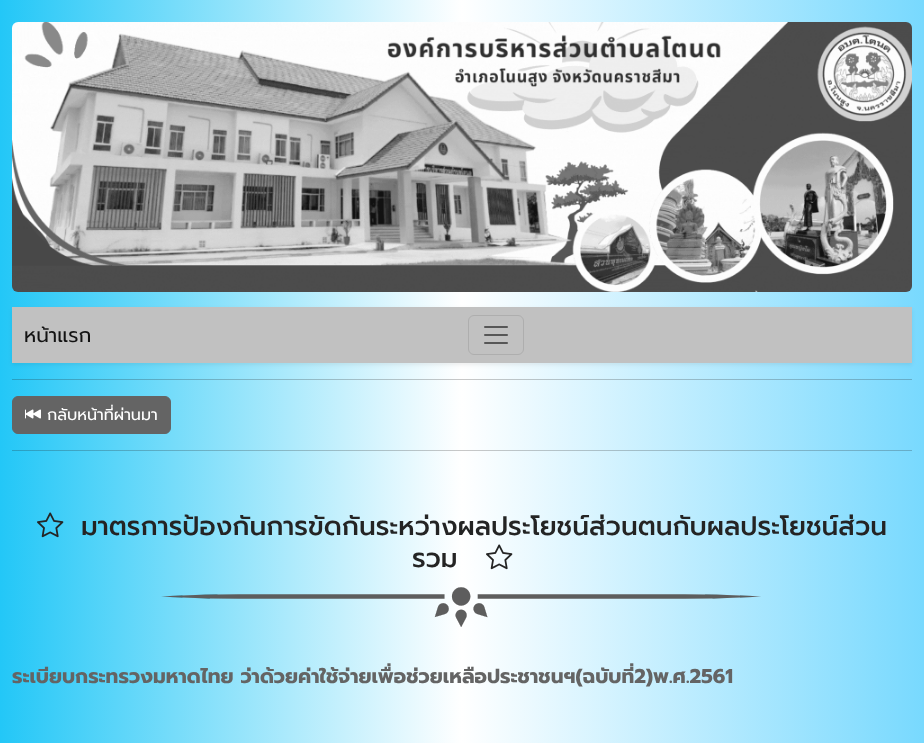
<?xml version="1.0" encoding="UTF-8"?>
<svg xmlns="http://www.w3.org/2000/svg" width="924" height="743">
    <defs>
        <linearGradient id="g1" gradientUnits="userSpaceOnUse" x1="0" y1="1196" x2="924" y2="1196"><stop offset="0" stop-color="#23C7F7"/><stop offset="0.5" stop-color="#FFFFFF"/><stop offset="1" stop-color="#78D9FE"/></linearGradient>
        <linearGradient id="g2" gradientUnits="userSpaceOnUse" x1="0" y1="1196" x2="924" y2="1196"><stop offset="0" stop-color="#239EC2"/><stop offset="0.5" stop-color="#C8C8C8"/><stop offset="1" stop-color="#63ACC8"/></linearGradient>
        <filter id="blur1" x="-50%" y="-200%" width="200%" height="500%"><feGaussianBlur stdDeviation="2"/></filter>
    </defs>
    <rect width="100%" height="100%" fill="#FFFFFF"/>
    <rect x="0" y="0" width="924" height="743" fill="url(#g1)"/>
    <rect x="12" y="450" width="900" height="1" fill="url(#g2)"/>
    <rect x="12" y="379" width="900" height="1" fill="url(#g2)"/>
    <image x="12" y="22" width="900" height="270" href="img_01.png"/>
    <rect x="12" y="309" width="900" height="56" fill="#000000" fill-opacity="0.07" filter="url(#blur1)"/>
    <rect x="12" y="307" width="900" height="56" fill="#C1C1C1"/>
    <text x="24" y="342" font-family="Prompt" font-size="20" fill="#131313">หน้าแรก</text>
    <rect x="468.5" y="315.5" width="55" height="39" rx="5.5" fill="none" stroke="#AEAEAE"/>
    <image x="484" y="326" width="24" height="18" href="img_02.png"/>
    <rect x="12.5" y="396.5" width="158" height="37" rx="5.5" fill="#646464" stroke="#646464"/>
    <image x="25" y="409" width="16" height="10" href="img_03.png"/>
    <text x="47" y="420" font-family="Prompt" font-size="16" fill="#FFFFFF">กลับหน้าที่ผ่านมา</text>
    <image x="37" y="512" width="27" height="26" href="img_04.png"/>
    <text x="81" y="535" font-family="Prompt" font-size="26.35" font-weight="500" fill="#242424">มาตรการป้องกันการขัดกันระหว่างผลประโยชน์ส่วนตนกับผลประโยชน์ส่วน</text>
    <text x="412" y="567" font-family="Prompt" font-size="26.35" font-weight="500" fill="#242424">รวม</text>
    <image x="486" y="544" width="27" height="26" href="img_05.png"/>
    <image x="161" y="587" width="600" height="40" href="img_06.png"/>
    <text x="12" y="683" font-family="Prompt" font-size="20" font-weight="700" fill="#646464">ระเบียบกระทรวงมหาดไทย ว่าด้วยค่าใช้จ่ายเพื่อช่วยเหลือประชาชนฯ(ฉบับที่2)พ.ศ.2561</text>
</svg>
